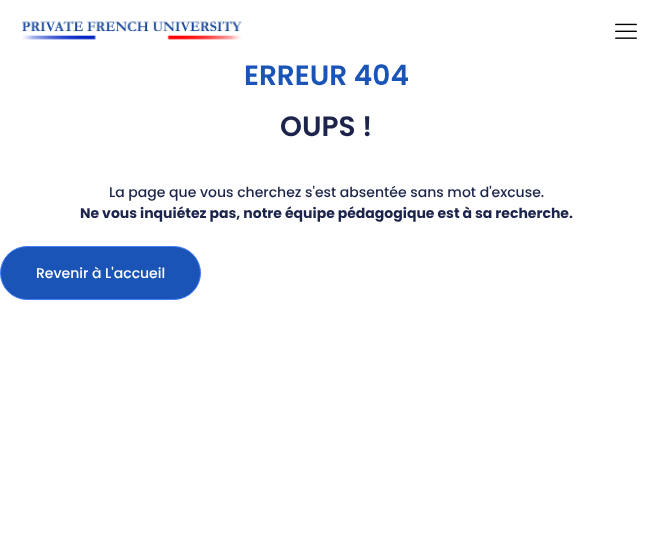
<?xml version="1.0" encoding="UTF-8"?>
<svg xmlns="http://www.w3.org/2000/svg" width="653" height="547">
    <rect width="100%" height="100%" fill="#FFFFFF"/>
    <image x="21" y="21" width="221" height="19" href="img_01.png"/>
    <image x="615" y="23" width="22" height="16" href="img_02.png"/>
    <text x="244" y="85" font-family="Poppins" font-size="28" font-weight="600" fill="#1A54B6">ERREUR 404</text>
    <text x="280" y="136" font-family="Poppins" font-size="28" font-weight="600" fill="#1C244B">OUPS !</text>
    <text x="109" y="197" font-family="Poppins" font-size="14" font-weight="500" fill="#1C244B">La page que vous cherchez s'est absentée sans mot d'excuse.</text>
    <text x="80" y="218" font-family="Poppins" font-size="14" font-weight="700" fill="#1C244B">Ne vous inquiétez pas, notre équipe pédagogique est à sa recherche.</text>
    <rect x="0.5" y="246.5" width="200" height="53" rx="26.5" fill="#1A54B6" stroke="#467FF7"/>
    <text x="36" y="278" font-family="Poppins" font-size="14" font-weight="500" fill="#FFFFFF">Revenir à L'accueil</text>
</svg>
